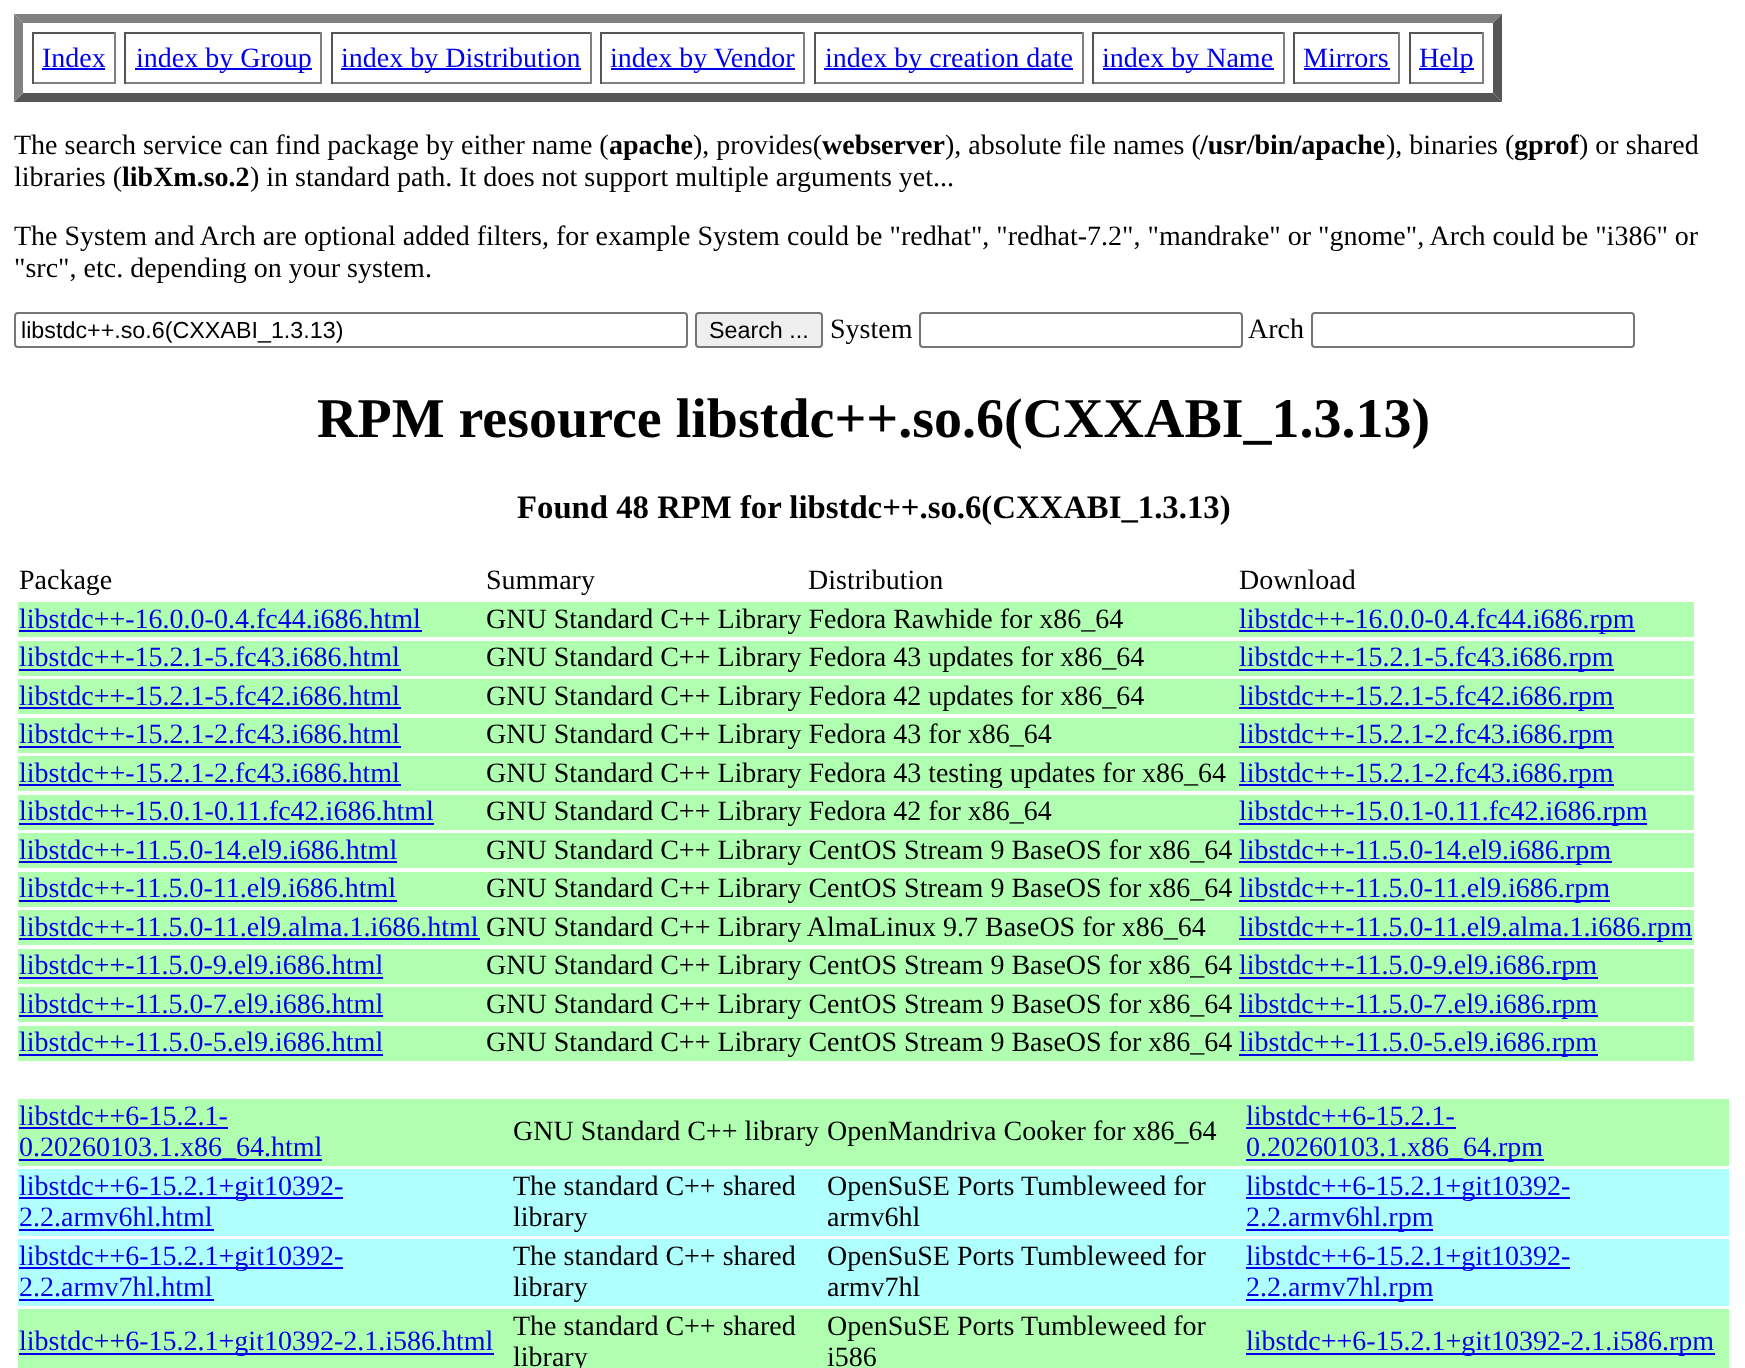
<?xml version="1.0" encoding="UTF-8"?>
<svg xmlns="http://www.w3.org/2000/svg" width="1745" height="1368">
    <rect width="100%" height="100%" fill="#FFFFFF"/>
    <path d="M 14 14 H 1502 L 1493 23 H 23 Z" fill="#808080"/>
    <path d="M 1502 14 V 102 L 1493 93 V 23 Z" fill="#555555"/>
    <path d="M 1502 102 H 14 L 23 93 H 1493 Z" fill="#555555"/>
    <path d="M 14 102 V 14 L 23 23 V 93 Z" fill="#808080"/>
    <rect x="32" y="32" width="84" height="2" fill="#555555"/>
    <rect x="114" y="32" width="2" height="52" fill="#808080"/>
    <rect x="32" y="82" width="84" height="2" fill="#808080"/>
    <rect x="32" y="32" width="2" height="52" fill="#555555"/>
    <text x="42" y="67" font-family="Liberation Serif" font-size="28" fill="#0000EE">Index</text>
    <rect x="42" y="68" width="63" height="2" fill="#0000EE"/>
    <rect x="124" y="32" width="198" height="2" fill="#555555"/>
    <rect x="320" y="32" width="2" height="52" fill="#808080"/>
    <rect x="124" y="82" width="198" height="2" fill="#808080"/>
    <rect x="124" y="32" width="2" height="52" fill="#555555"/>
    <rect x="135" y="68" width="177" height="2" fill="#0000EE"/>
    <text x="136" y="67" font-family="Liberation Serif" font-size="28" fill="#0000EE">index by Group</text>
    <rect x="331" y="32" width="261" height="2" fill="#555555"/>
    <rect x="590" y="32" width="2" height="52" fill="#808080"/>
    <rect x="331" y="82" width="261" height="2" fill="#808080"/>
    <rect x="331" y="32" width="2" height="52" fill="#555555"/>
    <rect x="341" y="68" width="240" height="2" fill="#0000EE"/>
    <text x="341" y="67" font-family="Liberation Serif" font-size="28" fill="#0000EE">index by Distribution</text>
    <rect x="600" y="32" width="205" height="2" fill="#555555"/>
    <rect x="803" y="32" width="2" height="52" fill="#808080"/>
    <rect x="600" y="82" width="205" height="2" fill="#808080"/>
    <rect x="600" y="32" width="2" height="52" fill="#555555"/>
    <rect x="611" y="68" width="184" height="2" fill="#0000EE"/>
    <text x="610" y="67" font-family="Liberation Serif" font-size="28" fill="#0000EE">index by Vendor</text>
    <rect x="814" y="32" width="269" height="2" fill="#555555"/>
    <rect x="1082" y="32" width="2" height="52" fill="#808080"/>
    <rect x="814" y="82" width="269" height="2" fill="#808080"/>
    <rect x="814" y="32" width="2" height="52" fill="#555555"/>
    <rect x="824" y="68" width="249" height="2" fill="#0000EE"/>
    <text x="825" y="67" font-family="Liberation Serif" font-size="28" fill="#0000EE">index by creation date</text>
    <rect x="1092" y="32" width="193" height="2" fill="#555555"/>
    <rect x="1283" y="32" width="2" height="52" fill="#808080"/>
    <rect x="1092" y="82" width="193" height="2" fill="#808080"/>
    <rect x="1092" y="32" width="2" height="52" fill="#555555"/>
    <rect x="1103" y="68" width="171" height="2" fill="#0000EE"/>
    <text x="1102" y="67" font-family="Liberation Serif" font-size="28" fill="#0000EE">index by Name</text>
    <rect x="1293" y="32" width="107" height="2" fill="#555555"/>
    <rect x="1398" y="32" width="2" height="52" fill="#808080"/>
    <rect x="1293" y="82" width="107" height="2" fill="#808080"/>
    <rect x="1293" y="32" width="2" height="52" fill="#555555"/>
    <text x="1303" y="67" font-family="Liberation Serif" font-size="28" fill="#0000EE">Mirrors</text>
    <rect x="1304" y="68" width="86" height="2" fill="#0000EE"/>
    <rect x="1409" y="32" width="75" height="2" fill="#555555"/>
    <rect x="1482" y="32" width="2" height="52" fill="#808080"/>
    <rect x="1409" y="82" width="75" height="2" fill="#808080"/>
    <rect x="1409" y="32" width="2" height="52" fill="#555555"/>
    <rect x="1419" y="68" width="55" height="2" fill="#0000EE"/>
    <text x="1419" y="67" font-family="Liberation Serif" font-size="28" fill="#0000EE">Help</text>
    <text x="14" y="154" font-family="Liberation Serif" font-size="28" fill="#000000">The search service can find package by either name (</text>
    <text x="609" y="154" font-family="Liberation Serif" font-size="28" font-weight="700" fill="#000000">apache</text>
    <text x="693" y="154" font-family="Liberation Serif" font-size="28" fill="#000000">), provides(</text>
    <text x="822" y="154" font-family="Liberation Serif" font-size="28" font-weight="700" fill="#000000">webserver</text>
    <text x="945" y="154" font-family="Liberation Serif" font-size="28" fill="#000000">), absolute file names (</text>
    <text x="1200" y="154" font-family="Liberation Serif" font-size="28" font-weight="700" fill="#000000">/usr/bin/apache</text>
    <text x="1386" y="154" font-family="Liberation Serif" font-size="28" fill="#000000">), binaries (</text>
    <text x="1514" y="154" font-family="Liberation Serif" font-size="28" font-weight="700" fill="#000000">gprof</text>
    <text x="1579" y="154" font-family="Liberation Serif" font-size="28" fill="#000000">) or shared</text>
    <text x="14" y="186" font-family="Liberation Serif" font-size="28" fill="#000000">libraries (</text>
    <text x="122" y="186" font-family="Liberation Serif" font-size="28" font-weight="700" fill="#000000">libXm.so.2</text>
    <text x="250" y="186" font-family="Liberation Serif" font-size="28" fill="#000000">) in standard path. It does not support multiple arguments yet...</text>
    <text font-family="Liberation Serif" font-size="28" fill="#000000">
        <tspan x="14" y="245">The System and Arch are optional added filters, for example System could be "redhat", "redhat-7.2", "mandrake" or "gnome", Arch could be "i386" or</tspan>
        <tspan x="14" y="277">"src", etc. depending on your system.</tspan>
    </text>
    <rect x="15" y="313" width="672" height="34" rx="3" fill="none" stroke="#767676" stroke-width="2"/>
    <text x="21" y="338" font-family="Liberation Sans" font-size="23.3" fill="#000000">libstdc++.so.6(CXXABI_1.3.13)</text>
    <rect x="696" y="313" width="126" height="34" rx="3" fill="#EFEFEF" stroke="#767676" stroke-width="2"/>
    <text x="709" y="338" font-family="Liberation Sans" font-size="23.3" fill="#000000">Search ...</text>
    <text x="830" y="338" font-family="Liberation Serif" font-size="28" fill="#000000">System</text>
    <rect x="920" y="313" width="322" height="34" rx="3" fill="none" stroke="#767676" stroke-width="2"/>
    <text x="1248" y="338" font-family="Liberation Serif" font-size="28" fill="#000000">Arch</text>
    <rect x="1312" y="313" width="322" height="34" rx="3" fill="none" stroke="#767676" stroke-width="2"/>
    <text x="317" y="437" font-family="Liberation Serif" font-size="56" font-weight="700" fill="#000000">RPM resource libstdc++.so.6(CXXABI_1.3.13)</text>
    <text x="517" y="518" font-family="Liberation Serif" font-size="32.75" font-weight="700" fill="#000000">Found 48 RPM for libstdc++.so.6(CXXABI_1.3.13)</text>
    <text x="19" y="589" font-family="Liberation Serif" font-size="28" fill="#000000">Package</text>
    <text x="486" y="589" font-family="Liberation Serif" font-size="28" fill="#000000">Summary</text>
    <text x="808" y="589" font-family="Liberation Serif" font-size="28" fill="#000000">Distribution</text>
    <text x="1239" y="589" font-family="Liberation Serif" font-size="28" fill="#000000">Download</text>
    <rect x="18" y="602" width="1676" height="35" fill="#B0FFB0"/>
    <text x="19" y="628" font-family="Liberation Serif" font-size="28" fill="#0000EE">libstdc++-16.0.0-0.4.fc44.i686.html</text>
    <rect x="19" y="630" width="403" height="2" fill="#0000EE"/>
    <text x="486" y="628" font-family="Liberation Serif" font-size="28" fill="#000000">GNU Standard C++ Library Fedora Rawhide for x86_64</text>
    <rect x="1239" y="630" width="396" height="2" fill="#0000EE"/>
    <text x="1239" y="628" font-family="Liberation Serif" font-size="28" fill="#0000EE">libstdc++-16.0.0-0.4.fc44.i686.rpm</text>
    <rect x="18" y="641" width="1676" height="35" fill="#B0FFB0"/>
    <text x="19" y="666" font-family="Liberation Serif" font-size="28" fill="#0000EE">libstdc++-15.2.1-5.fc43.i686.html</text>
    <rect x="19" y="669" width="382" height="2" fill="#0000EE"/>
    <text x="486" y="666" font-family="Liberation Serif" font-size="28" fill="#000000">GNU Standard C++ Library Fedora 43 updates for x86_64</text>
    <rect x="1239" y="669" width="375" height="2" fill="#0000EE"/>
    <text x="1239" y="666" font-family="Liberation Serif" font-size="28" fill="#0000EE">libstdc++-15.2.1-5.fc43.i686.rpm</text>
    <rect x="18" y="679" width="1676" height="35" fill="#B0FFB0"/>
    <text x="19" y="705" font-family="Liberation Serif" font-size="28" fill="#0000EE">libstdc++-15.2.1-5.fc42.i686.html</text>
    <rect x="19" y="707" width="382" height="2" fill="#0000EE"/>
    <text x="486" y="705" font-family="Liberation Serif" font-size="28" fill="#000000">GNU Standard C++ Library Fedora 42 updates for x86_64</text>
    <rect x="1239" y="707" width="375" height="2" fill="#0000EE"/>
    <text x="1239" y="705" font-family="Liberation Serif" font-size="28" fill="#0000EE">libstdc++-15.2.1-5.fc42.i686.rpm</text>
    <rect x="18" y="718" width="1676" height="35" fill="#B0FFB0"/>
    <text x="19" y="743" font-family="Liberation Serif" font-size="28" fill="#0000EE">libstdc++-15.2.1-2.fc43.i686.html</text>
    <rect x="19" y="746" width="382" height="2" fill="#0000EE"/>
    <text x="486" y="743" font-family="Liberation Serif" font-size="28" fill="#000000">GNU Standard C++ Library Fedora 43 for x86_64</text>
    <rect x="1239" y="746" width="375" height="2" fill="#0000EE"/>
    <text x="1239" y="743" font-family="Liberation Serif" font-size="28" fill="#0000EE">libstdc++-15.2.1-2.fc43.i686.rpm</text>
    <rect x="18" y="756" width="1676" height="35" fill="#B0FFB0"/>
    <text x="19" y="782" font-family="Liberation Serif" font-size="28" fill="#0000EE">libstdc++-15.2.1-2.fc43.i686.html</text>
    <rect x="19" y="784" width="382" height="2" fill="#0000EE"/>
    <text x="486" y="782" font-family="Liberation Serif" font-size="28" fill="#000000">GNU Standard C++ Library Fedora 43 testing updates for x86_64</text>
    <rect x="1239" y="784" width="375" height="2" fill="#0000EE"/>
    <text x="1239" y="782" font-family="Liberation Serif" font-size="28" fill="#0000EE">libstdc++-15.2.1-2.fc43.i686.rpm</text>
    <rect x="18" y="795" width="1676" height="35" fill="#B0FFB0"/>
    <text x="19" y="820" font-family="Liberation Serif" font-size="28" fill="#0000EE">libstdc++-15.0.1-0.11.fc42.i686.html</text>
    <rect x="19" y="823" width="415" height="2" fill="#0000EE"/>
    <text x="486" y="820" font-family="Liberation Serif" font-size="28" fill="#000000">GNU Standard C++ Library Fedora 42 for x86_64</text>
    <rect x="1239" y="823" width="408" height="2" fill="#0000EE"/>
    <text x="1239" y="820" font-family="Liberation Serif" font-size="28" fill="#0000EE">libstdc++-15.0.1-0.11.fc42.i686.rpm</text>
    <rect x="18" y="833" width="1676" height="35" fill="#B0FFB0"/>
    <text x="19" y="859" font-family="Liberation Serif" font-size="28" fill="#0000EE">libstdc++-11.5.0-14.el9.i686.html</text>
    <rect x="19" y="861" width="378" height="2" fill="#0000EE"/>
    <text x="486" y="859" font-family="Liberation Serif" font-size="28" fill="#000000">GNU Standard C++ Library CentOS Stream 9 BaseOS for x86_64</text>
    <rect x="1239" y="861" width="373" height="2" fill="#0000EE"/>
    <text x="1239" y="859" font-family="Liberation Serif" font-size="28" fill="#0000EE">libstdc++-11.5.0-14.el9.i686.rpm</text>
    <rect x="18" y="872" width="1676" height="35" fill="#B0FFB0"/>
    <text x="19" y="897" font-family="Liberation Serif" font-size="28" fill="#0000EE">libstdc++-11.5.0-11.el9.i686.html</text>
    <rect x="19" y="900" width="378" height="2" fill="#0000EE"/>
    <text x="486" y="897" font-family="Liberation Serif" font-size="28" fill="#000000">GNU Standard C++ Library CentOS Stream 9 BaseOS for x86_64</text>
    <rect x="1239" y="900" width="371" height="2" fill="#0000EE"/>
    <text x="1239" y="897" font-family="Liberation Serif" font-size="28" fill="#0000EE">libstdc++-11.5.0-11.el9.i686.rpm</text>
    <rect x="18" y="910" width="1676" height="35" fill="#B0FFB0"/>
    <text x="19" y="936" font-family="Liberation Serif" font-size="28" fill="#0000EE">libstdc++-11.5.0-11.el9.alma.1.i686.html</text>
    <rect x="19" y="938" width="461" height="2" fill="#0000EE"/>
    <text x="486" y="936" font-family="Liberation Serif" font-size="28" fill="#000000">GNU Standard C++ Library AlmaLinux 9.7 BaseOS for x86_64</text>
    <rect x="1239" y="938" width="453" height="2" fill="#0000EE"/>
    <text x="1239" y="936" font-family="Liberation Serif" font-size="28" fill="#0000EE">libstdc++-11.5.0-11.el9.alma.1.i686.rpm</text>
    <rect x="18" y="949" width="1676" height="35" fill="#B0FFB0"/>
    <text x="19" y="974" font-family="Liberation Serif" font-size="28" fill="#0000EE">libstdc++-11.5.0-9.el9.i686.html</text>
    <rect x="19" y="977" width="364" height="2" fill="#0000EE"/>
    <text x="486" y="974" font-family="Liberation Serif" font-size="28" fill="#000000">GNU Standard C++ Library CentOS Stream 9 BaseOS for x86_64</text>
    <rect x="1239" y="977" width="359" height="2" fill="#0000EE"/>
    <text x="1239" y="974" font-family="Liberation Serif" font-size="28" fill="#0000EE">libstdc++-11.5.0-9.el9.i686.rpm</text>
    <rect x="18" y="987" width="1676" height="35" fill="#B0FFB0"/>
    <text x="19" y="1013" font-family="Liberation Serif" font-size="28" fill="#0000EE">libstdc++-11.5.0-7.el9.i686.html</text>
    <rect x="19" y="1015" width="364" height="2" fill="#0000EE"/>
    <text x="486" y="1013" font-family="Liberation Serif" font-size="28" fill="#000000">GNU Standard C++ Library CentOS Stream 9 BaseOS for x86_64</text>
    <rect x="1239" y="1015" width="359" height="2" fill="#0000EE"/>
    <text x="1239" y="1013" font-family="Liberation Serif" font-size="28" fill="#0000EE">libstdc++-11.5.0-7.el9.i686.rpm</text>
    <rect x="18" y="1026" width="1676" height="35" fill="#B0FFB0"/>
    <text x="19" y="1051" font-family="Liberation Serif" font-size="28" fill="#0000EE">libstdc++-11.5.0-5.el9.i686.html</text>
    <rect x="19" y="1054" width="364" height="2" fill="#0000EE"/>
    <text x="486" y="1051" font-family="Liberation Serif" font-size="28" fill="#000000">GNU Standard C++ Library CentOS Stream 9 BaseOS for x86_64</text>
    <rect x="1239" y="1054" width="359" height="2" fill="#0000EE"/>
    <text x="1239" y="1051" font-family="Liberation Serif" font-size="28" fill="#0000EE">libstdc++-11.5.0-5.el9.i686.rpm</text>
    <rect x="18" y="1099" width="1711" height="67" fill="#B0FFB0"/>
    <text x="19" y="1125" font-family="Liberation Serif" font-size="28" fill="#0000EE">libstdc++6-15.2.1-</text>
    <rect x="19" y="1127" width="209" height="2" fill="#0000EE"/>
    <rect x="19" y="1159" width="303" height="2" fill="#0000EE"/>
    <text x="19" y="1156" font-family="Liberation Serif" font-size="28" fill="#0000EE">0.20260103.1.x86_64.html</text>
    <text x="513" y="1140" font-family="Liberation Serif" font-size="28" fill="#000000">GNU Standard C++ library</text>
    <text x="827" y="1140" font-family="Liberation Serif" font-size="28" fill="#000000">OpenMandriva Cooker for x86_64</text>
    <text x="1246" y="1125" font-family="Liberation Serif" font-size="28" fill="#0000EE">libstdc++6-15.2.1-</text>
    <rect x="1246" y="1127" width="210" height="2" fill="#0000EE"/>
    <rect x="1246" y="1159" width="298" height="2" fill="#0000EE"/>
    <text x="1246" y="1156" font-family="Liberation Serif" font-size="28" fill="#0000EE">0.20260103.1.x86_64.rpm</text>
    <rect x="18" y="1169" width="1711" height="67" fill="#B0FFFF"/>
    <rect x="19" y="1197" width="324" height="2" fill="#0000EE"/>
    <text font-family="Liberation Serif" font-size="28" fill="#0000EE">
        <tspan x="19" y="1195">libstdc++6-15.2.1+git10392-</tspan>
        <tspan x="19" y="1226">2.2.armv6hl.html</tspan>
    </text>
    <rect x="19" y="1229" width="195" height="2" fill="#0000EE"/>
    <text font-family="Liberation Serif" font-size="28" fill="#000000">
        <tspan x="513" y="1195">The standard C++ shared</tspan>
        <tspan x="513" y="1226">library</tspan>
    </text>
    <text font-family="Liberation Serif" font-size="28" fill="#000000">
        <tspan x="827" y="1195">OpenSuSE Ports Tumbleweed for</tspan>
        <tspan x="827" y="1226">armv6hl</tspan>
    </text>
    <rect x="1246" y="1197" width="324" height="2" fill="#0000EE"/>
    <text x="1246" y="1195" font-family="Liberation Serif" font-size="28" fill="#0000EE">libstdc++6-15.2.1+git10392-</text>
    <rect x="1246" y="1229" width="187" height="2" fill="#0000EE"/>
    <text x="1246" y="1226" font-family="Liberation Serif" font-size="28" fill="#0000EE">2.2.armv6hl.rpm</text>
    <rect x="18" y="1239" width="1711" height="67" fill="#B0FFFF"/>
    <rect x="19" y="1267" width="324" height="2" fill="#0000EE"/>
    <text font-family="Liberation Serif" font-size="28" fill="#0000EE">
        <tspan x="19" y="1265">libstdc++6-15.2.1+git10392-</tspan>
        <tspan x="19" y="1296">2.2.armv7hl.html</tspan>
    </text>
    <rect x="19" y="1299" width="195" height="2" fill="#0000EE"/>
    <text font-family="Liberation Serif" font-size="28" fill="#000000">
        <tspan x="513" y="1265">The standard C++ shared</tspan>
        <tspan x="513" y="1296">library</tspan>
    </text>
    <text font-family="Liberation Serif" font-size="28" fill="#000000">
        <tspan x="827" y="1265">OpenSuSE Ports Tumbleweed for</tspan>
        <tspan x="827" y="1296">armv7hl</tspan>
    </text>
    <rect x="1246" y="1267" width="324" height="2" fill="#0000EE"/>
    <text x="1246" y="1265" font-family="Liberation Serif" font-size="28" fill="#0000EE">libstdc++6-15.2.1+git10392-</text>
    <rect x="1246" y="1299" width="187" height="2" fill="#0000EE"/>
    <text x="1246" y="1296" font-family="Liberation Serif" font-size="28" fill="#0000EE">2.2.armv7hl.rpm</text>
    <rect x="18" y="1309" width="1711" height="59" fill="#B0FFB0"/>
    <rect x="19" y="1353" width="475" height="2" fill="#0000EE"/>
    <text x="19" y="1350" font-family="Liberation Serif" font-size="28" fill="#0000EE">libstdc++6-15.2.1+git10392-2.1.i586.html</text>
    <text font-family="Liberation Serif" font-size="28" fill="#000000">
        <tspan x="513" y="1335">The standard C++ shared</tspan>
        <tspan x="513" y="1366">library</tspan>
    </text>
    <text font-family="Liberation Serif" font-size="28" fill="#000000">
        <tspan x="827" y="1335">OpenSuSE Ports Tumbleweed for</tspan>
        <tspan x="827" y="1366">i586</tspan>
    </text>
    <rect x="1246" y="1353" width="469" height="2" fill="#0000EE"/>
    <text x="1246" y="1350" font-family="Liberation Serif" font-size="28" fill="#0000EE">libstdc++6-15.2.1+git10392-2.1.i586.rpm</text>
</svg>
